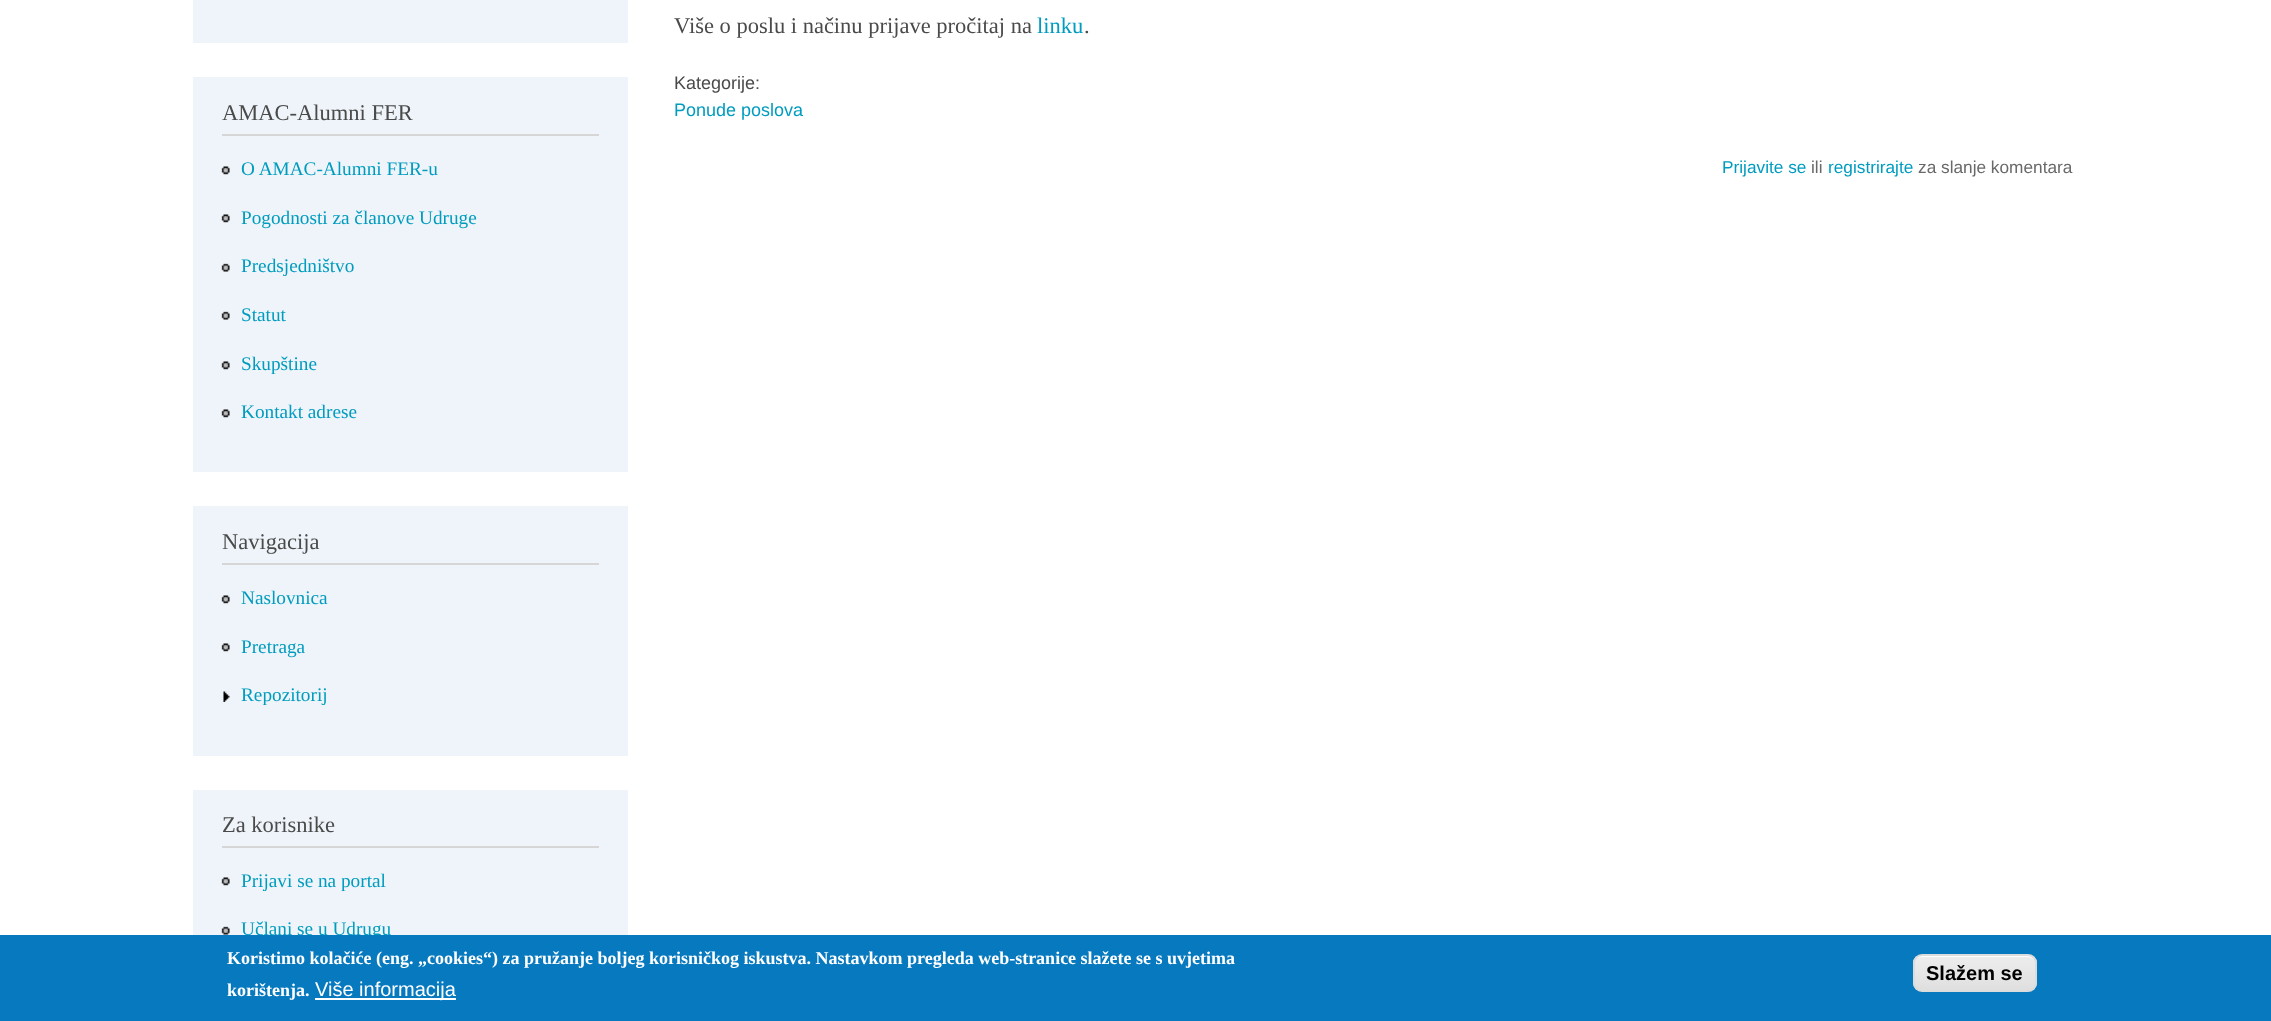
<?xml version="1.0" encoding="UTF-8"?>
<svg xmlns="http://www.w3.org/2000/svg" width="2271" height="1021">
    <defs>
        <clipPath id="clip1"><rect x="1913" y="954" width="124" height="38" rx="9"/></clipPath>
        <linearGradient id="g1" gradientUnits="userSpaceOnUse" x1="1975" y1="956" x2="1975" y2="990"><stop offset="0.05" stop-color="#EDEDED"/><stop offset="1" stop-color="#DFDFDF"/></linearGradient>
    </defs>
    <rect width="100%" height="100%" fill="#FFFFFF"/>
    <rect x="193" y="0" width="435" height="43" fill="#EEF4F9"/>
    <rect x="193" y="77" width="435" height="395" fill="#EEF4F9"/>
    <rect x="222" y="134" width="377" height="2" fill="#D6D6D6"/>
    <text x="222" y="120" font-family="Liberation Serif" font-size="22.5" fill="#4A4A4A">AMAC-Alumni FER</text>
    <image x="221" y="166" width="9" height="9" href="img_01.png"/>
    <text x="241" y="175" font-family="Liberation Serif" font-size="19.25" fill="#009CBF">O AMAC-Alumni FER-u</text>
    <image x="221" y="214" width="9" height="9" href="img_01.png"/>
    <text x="241" y="224" font-family="Liberation Serif" font-size="19.25" fill="#009CBF">Pogodnosti za članove Udruge</text>
    <image x="221" y="263" width="9" height="9" href="img_02.png"/>
    <text x="241" y="272" font-family="Liberation Serif" font-size="19.25" fill="#009CBF">Predsjedništvo</text>
    <image x="221" y="311" width="9" height="9" href="img_02.png"/>
    <text x="241" y="321" font-family="Liberation Serif" font-size="19.25" fill="#009CBF">Statut</text>
    <image x="221" y="361" width="9" height="9" href="img_01.png"/>
    <text x="241" y="370" font-family="Liberation Serif" font-size="19.25" fill="#009CBF">Skupštine</text>
    <image x="221" y="409" width="9" height="9" href="img_01.png"/>
    <text x="241" y="418" font-family="Liberation Serif" font-size="19.25" fill="#009CBF">Kontakt adrese</text>
    <rect x="193" y="506" width="435" height="250" fill="#EEF4F9"/>
    <rect x="222" y="563" width="377" height="2" fill="#D6D6D6"/>
    <text x="222" y="549" font-family="Liberation Serif" font-size="22.5" fill="#4A4A4A">Navigacija</text>
    <image x="221" y="595" width="9" height="9" href="img_01.png"/>
    <text x="241" y="604" font-family="Liberation Serif" font-size="19.25" fill="#009CBF">Naslovnica</text>
    <image x="221" y="643" width="9" height="9" href="img_01.png"/>
    <text x="241" y="653" font-family="Liberation Serif" font-size="19.25" fill="#009CBF">Pretraga</text>
    <image x="223" y="691" width="7" height="11" href="img_03.png"/>
    <text x="241" y="701" font-family="Liberation Serif" font-size="19.25" fill="#009CBF">Repozitorij</text>
    <rect x="193" y="790" width="435" height="145" fill="#EEF4F9"/>
    <rect x="222" y="846" width="377" height="2" fill="#D6D6D6"/>
    <text x="222" y="832" font-family="Liberation Serif" font-size="22.5" fill="#4A4A4A">Za korisnike</text>
    <image x="221" y="877" width="9" height="9" href="img_01.png"/>
    <text x="241" y="887" font-family="Liberation Serif" font-size="19.25" fill="#009CBF">Prijavi se na portal</text>
    <image x="221" y="926" width="9" height="9" href="img_02.png"/>
    <text x="241" y="935" font-family="Liberation Serif" font-size="19.25" fill="#009CBF">Učlani se u Udrugu</text>
    <text x="674" y="33" font-family="Liberation Serif" font-size="22.5" fill="#4A4A4A">Više o poslu i načinu prijave pročitaj na</text>
    <text x="1037" y="33" font-family="Liberation Serif" font-size="22.5" fill="#009CBF">linku</text>
    <text x="1084" y="33" font-family="Liberation Serif" font-size="22.5" fill="#4A4A4A">.</text>
    <text x="674" y="89" font-family="Liberation Sans" font-size="18" fill="#4A4A4A">Kategorije:</text>
    <text x="674" y="116" font-family="Liberation Sans" font-size="18" fill="#009CBF">Ponude poslova</text>
    <text x="1722" y="173" font-family="Liberation Sans" font-size="17.25" fill="#009CBF">Prijavite se</text>
    <text x="1811" y="173" font-family="Liberation Sans" font-size="17.25" fill="#68696B">ili</text>
    <text x="1828" y="173" font-family="Liberation Sans" font-size="17.25" fill="#009CBF">registrirajte</text>
    <text x="1918" y="173" font-family="Liberation Sans" font-size="17.25" fill="#68696B">za slanje komentara</text>
    <rect x="0" y="935" width="2271" height="86" fill="#0779BF"/>
    <text font-family="Liberation Serif" font-size="18" font-weight="700" fill="#FFFFFF">
        <tspan x="227" y="964">Koristimo kolačiće (eng. „cookies“) za pružanje boljeg korisničkog iskustva. Nastavkom pregleda web-stranice slažete se s uvjetima</tspan>
        <tspan x="227" y="996">korištenja.</tspan>
    </text>
    <rect x="315" y="998" width="141" height="2" fill="#FFFFFF"/>
    <text x="315" y="996" font-family="Liberation Sans" font-size="20" fill="#FFFFFF">Više informacija</text>
    <g clip-path="url(#clip1)">
        <rect x="1913" y="956" width="124" height="34" fill="url(#g1)"/>
    </g>
    <path d="M 1922 957 H 2028 C 2032 957 2036 960 2036 964 C 2036 960 2032 956 2028 956 H 1922 C 1918 956 1914 960 1914 964 C 1914 960 1917 957 1922 957 Z" fill="#FFFFFF"/>
    <rect x="1914" y="955" width="122" height="36" rx="8" fill="none" stroke="#DCDCDC" stroke-width="2"/>
    <text x="1926" y="980" font-family="Liberation Sans" font-size="20" font-weight="700" fill="#000000">Slažem se</text>
</svg>
